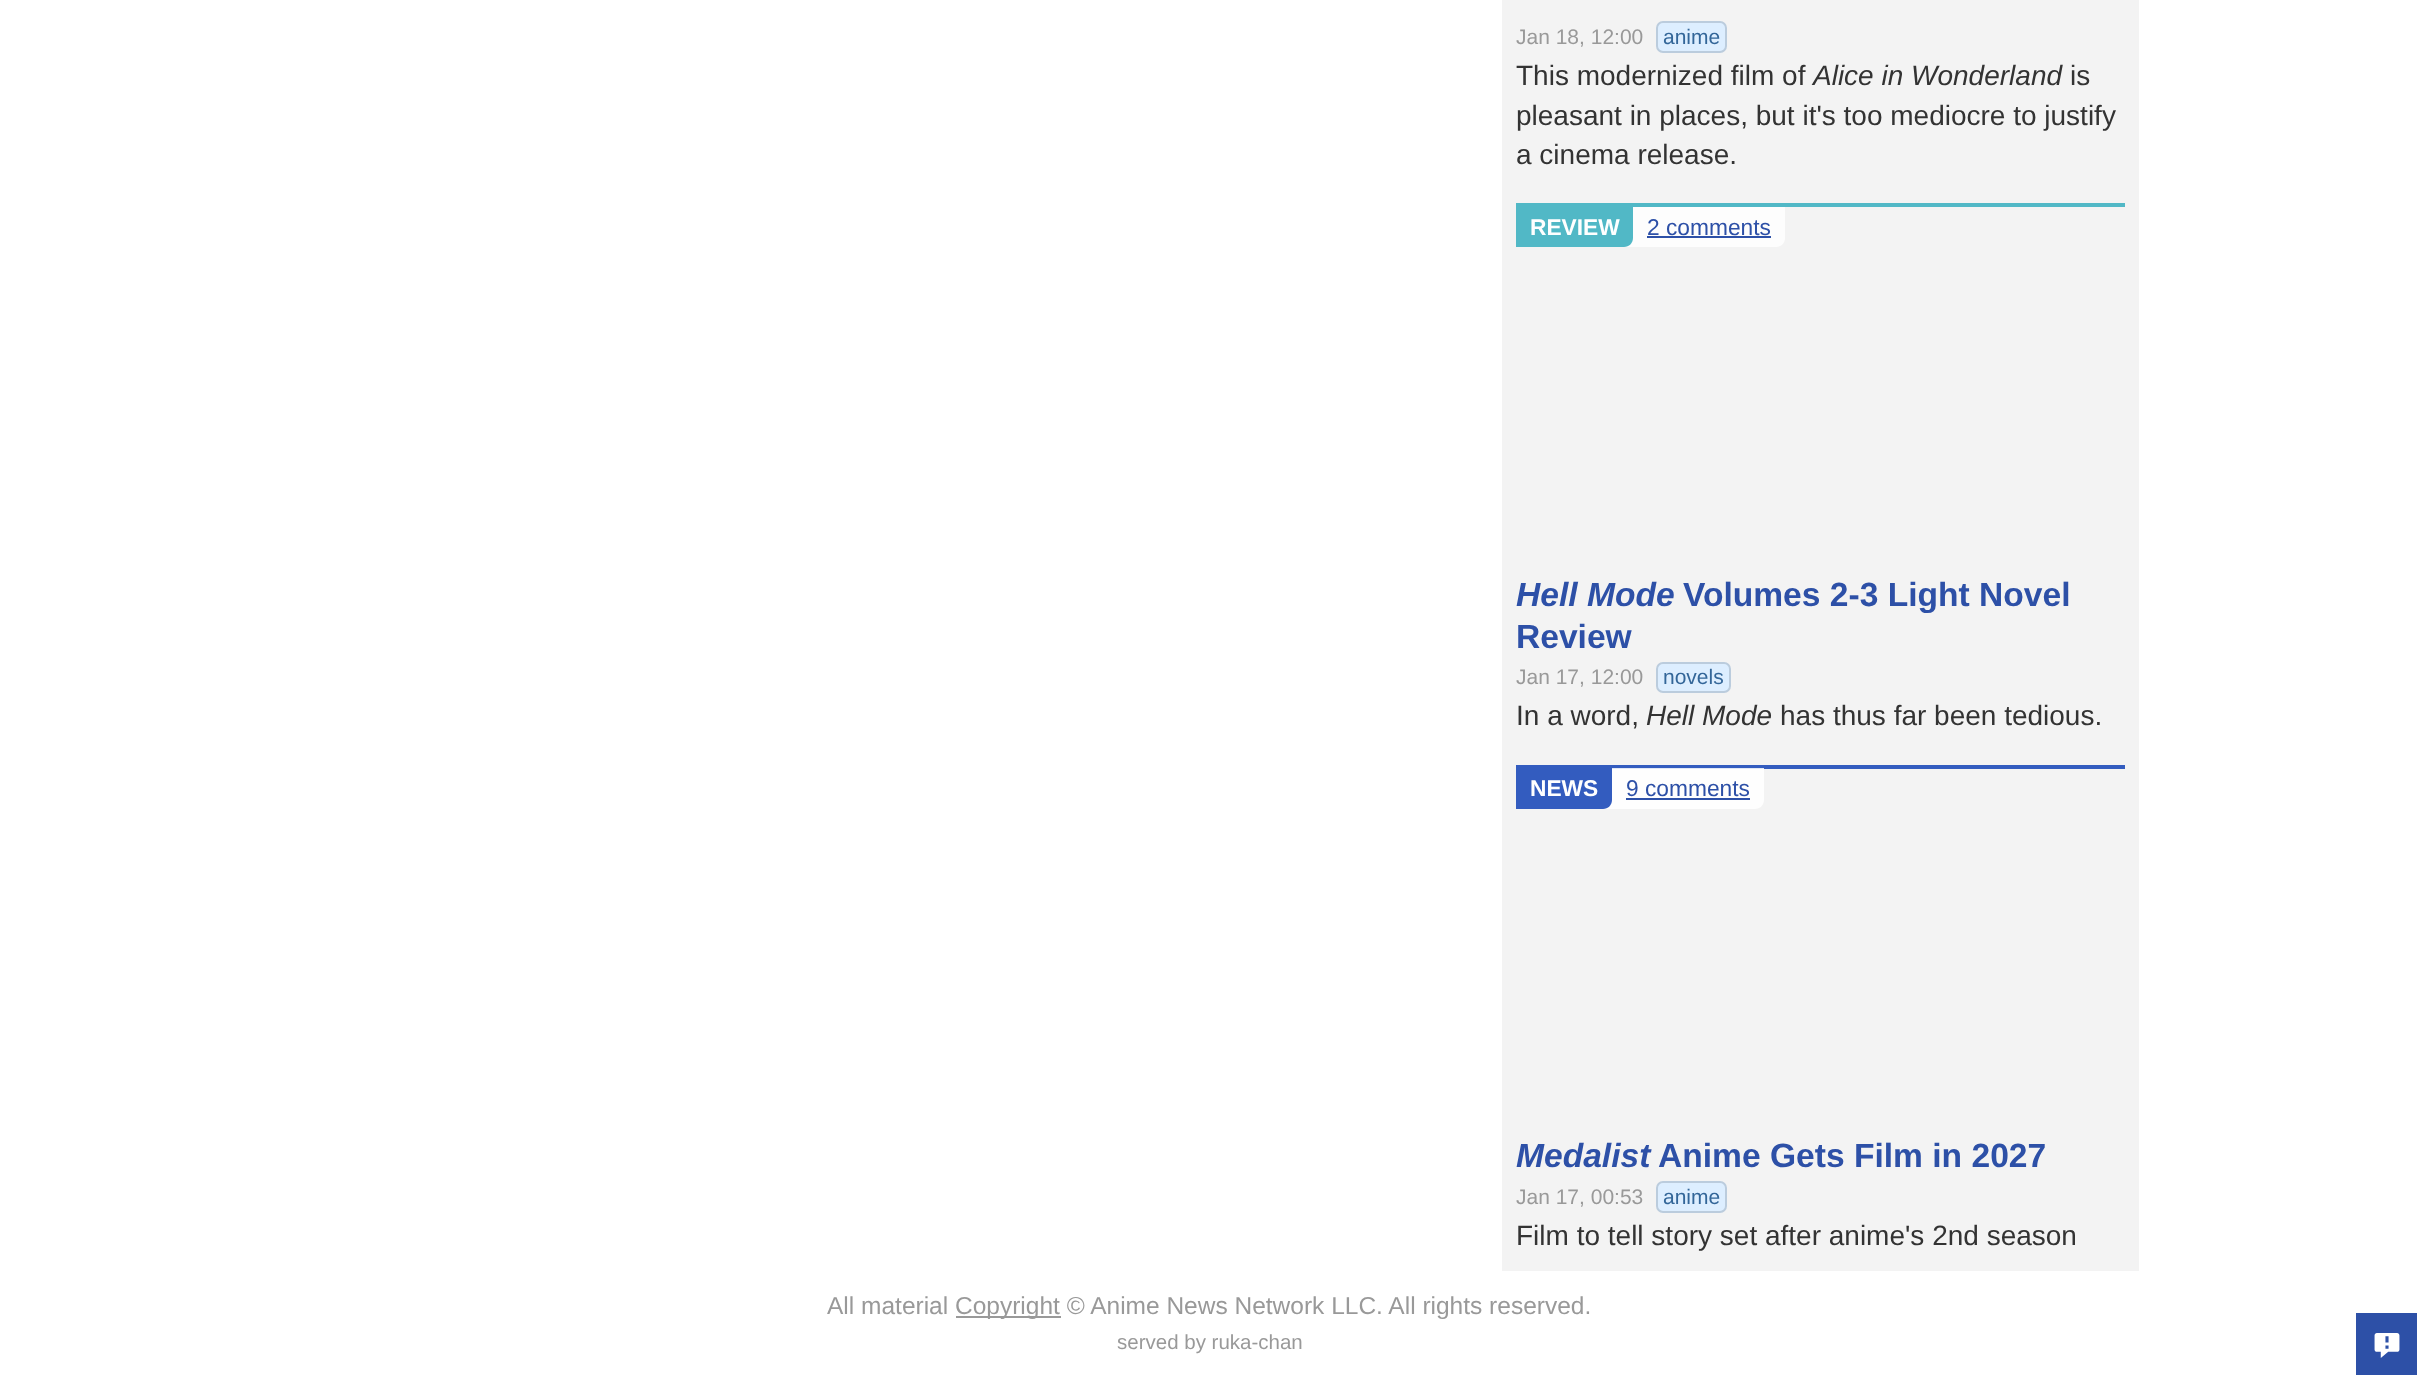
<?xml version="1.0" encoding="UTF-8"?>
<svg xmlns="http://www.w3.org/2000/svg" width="2417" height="1375">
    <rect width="100%" height="100%" fill="#FFFFFF"/>
    <rect x="1502" y="0" width="637" height="1271" fill="#F3F3F3"/>
    <text x="1516" y="44" font-family="Liberation Sans" font-size="21" fill="#999999">Jan 18, 12:00</text>
    <rect x="1657" y="22" width="69" height="30" rx="6" fill="#DDEEFF" stroke="#BBCCDD" stroke-width="2"/>
    <text x="1663" y="44" font-family="Liberation Sans" font-size="21" fill="#336699">anime</text>
    <text x="1516" y="85" font-family="Liberation Sans" font-size="28" fill="#333333">This modernized film of</text>
    <text x="1813" y="85" font-family="Liberation Sans" font-size="28" font-style="italic" fill="#333333">Alice in Wonderland</text>
    <text x="2070" y="85" font-family="Liberation Sans" font-size="28" fill="#333333">is</text>
    <text font-family="Liberation Sans" font-size="28" fill="#333333">
        <tspan x="1516" y="125">pleasant in places, but it's too mediocre to justify</tspan>
        <tspan x="1516" y="164">a cinema release.</tspan>
    </text>
    <rect x="1516" y="203" width="609" height="4" fill="#51B8C6"/>
    <path d="M 1516 207 H 1785 V 238 C 1785 243 1781 247 1776 247 H 1516 Z" fill="#FDFDFD"/>
    <path d="M 1516 207 H 1633 V 238 C 1633 243 1629 247 1624 247 H 1516 Z" fill="#51B8C6"/>
    <text x="1530" y="235" font-family="Liberation Sans" font-size="22.75" font-weight="700" fill="#FFFFFF">REVIEW</text>
    <text x="1647" y="235" font-family="Liberation Sans" font-size="22.75" fill="#2D50A7">2 comments</text>
    <rect x="1647" y="236" width="124" height="2" fill="#2D50A7"/>
    <text x="1516" y="606" font-family="Liberation Sans" font-size="33.6" font-weight="700" font-style="italic" fill="#2D50A7">Hell Mode</text>
    <text x="1683" y="606" font-family="Liberation Sans" font-size="33.6" font-weight="700" fill="#2D50A7">Volumes 2-3 Light Novel</text>
    <text x="1516" y="648" font-family="Liberation Sans" font-size="33.6" font-weight="700" fill="#2D50A7">Review</text>
    <text x="1516" y="684" font-family="Liberation Sans" font-size="21" fill="#999999">Jan 17, 12:00</text>
    <rect x="1657" y="663" width="73" height="29" rx="6" fill="#DDEEFF" stroke="#BBCCDD" stroke-width="2"/>
    <text x="1663" y="684" font-family="Liberation Sans" font-size="21" fill="#336699">novels</text>
    <text x="1516" y="725" font-family="Liberation Sans" font-size="28" fill="#333333">In a word,</text>
    <text x="1646" y="725" font-family="Liberation Sans" font-size="28" font-style="italic" fill="#333333">Hell Mode</text>
    <text x="1780" y="725" font-family="Liberation Sans" font-size="28" fill="#333333">has thus far been tedious.</text>
    <rect x="1516" y="765" width="609" height="4" fill="#335CBF"/>
    <path d="M 1516 768 H 1764 V 800 C 1764 805 1760 809 1755 809 H 1516 Z" fill="#FFFFFF" fill-opacity="0.85"/>
    <path d="M 1516 768 H 1612 V 800 C 1612 805 1608 809 1603 809 H 1516 Z" fill="#335CBF"/>
    <text x="1530" y="796" font-family="Liberation Sans" font-size="22.75" font-weight="700" fill="#FFFFFF">NEWS</text>
    <text x="1626" y="796" font-family="Liberation Sans" font-size="22.75" fill="#2D50A7">9 comments</text>
    <rect x="1626" y="798" width="124" height="2" fill="#2D50A7"/>
    <text x="1516" y="1167" font-family="Liberation Sans" font-size="33.6" font-weight="700" font-style="italic" fill="#2D50A7">Medalist</text>
    <text x="1658" y="1167" font-family="Liberation Sans" font-size="33.6" font-weight="700" fill="#2D50A7">Anime Gets Film in 2027</text>
    <text x="1516" y="1204" font-family="Liberation Sans" font-size="21" fill="#999999">Jan 17, 00:53</text>
    <rect x="1657" y="1182" width="69" height="30" rx="6" fill="#DDEEFF" stroke="#BBCCDD" stroke-width="2"/>
    <text x="1663" y="1204" font-family="Liberation Sans" font-size="21" fill="#336699">anime</text>
    <text x="1516" y="1245" font-family="Liberation Sans" font-size="28" fill="#333333">Film to tell story set after anime's 2nd season</text>
    <text x="827" y="1314" font-family="Liberation Sans" font-size="24.5" fill="#999999">All material</text>
    <rect x="956" y="1316" width="105" height="2" fill="#999999"/>
    <text x="955" y="1314" font-family="Liberation Sans" font-size="24.5" fill="#999999">Copyright © Anime News Network LLC. All rights reserved.</text>
    <text x="1117" y="1349" font-family="Liberation Sans" font-size="20.5" fill="#999999">served by ruka-chan</text>
    <rect x="2356" y="1313" width="61" height="62" fill="#2D50A7"/>
    <image x="2374" y="1333" width="26" height="25" href="img_01.png"/>
</svg>
